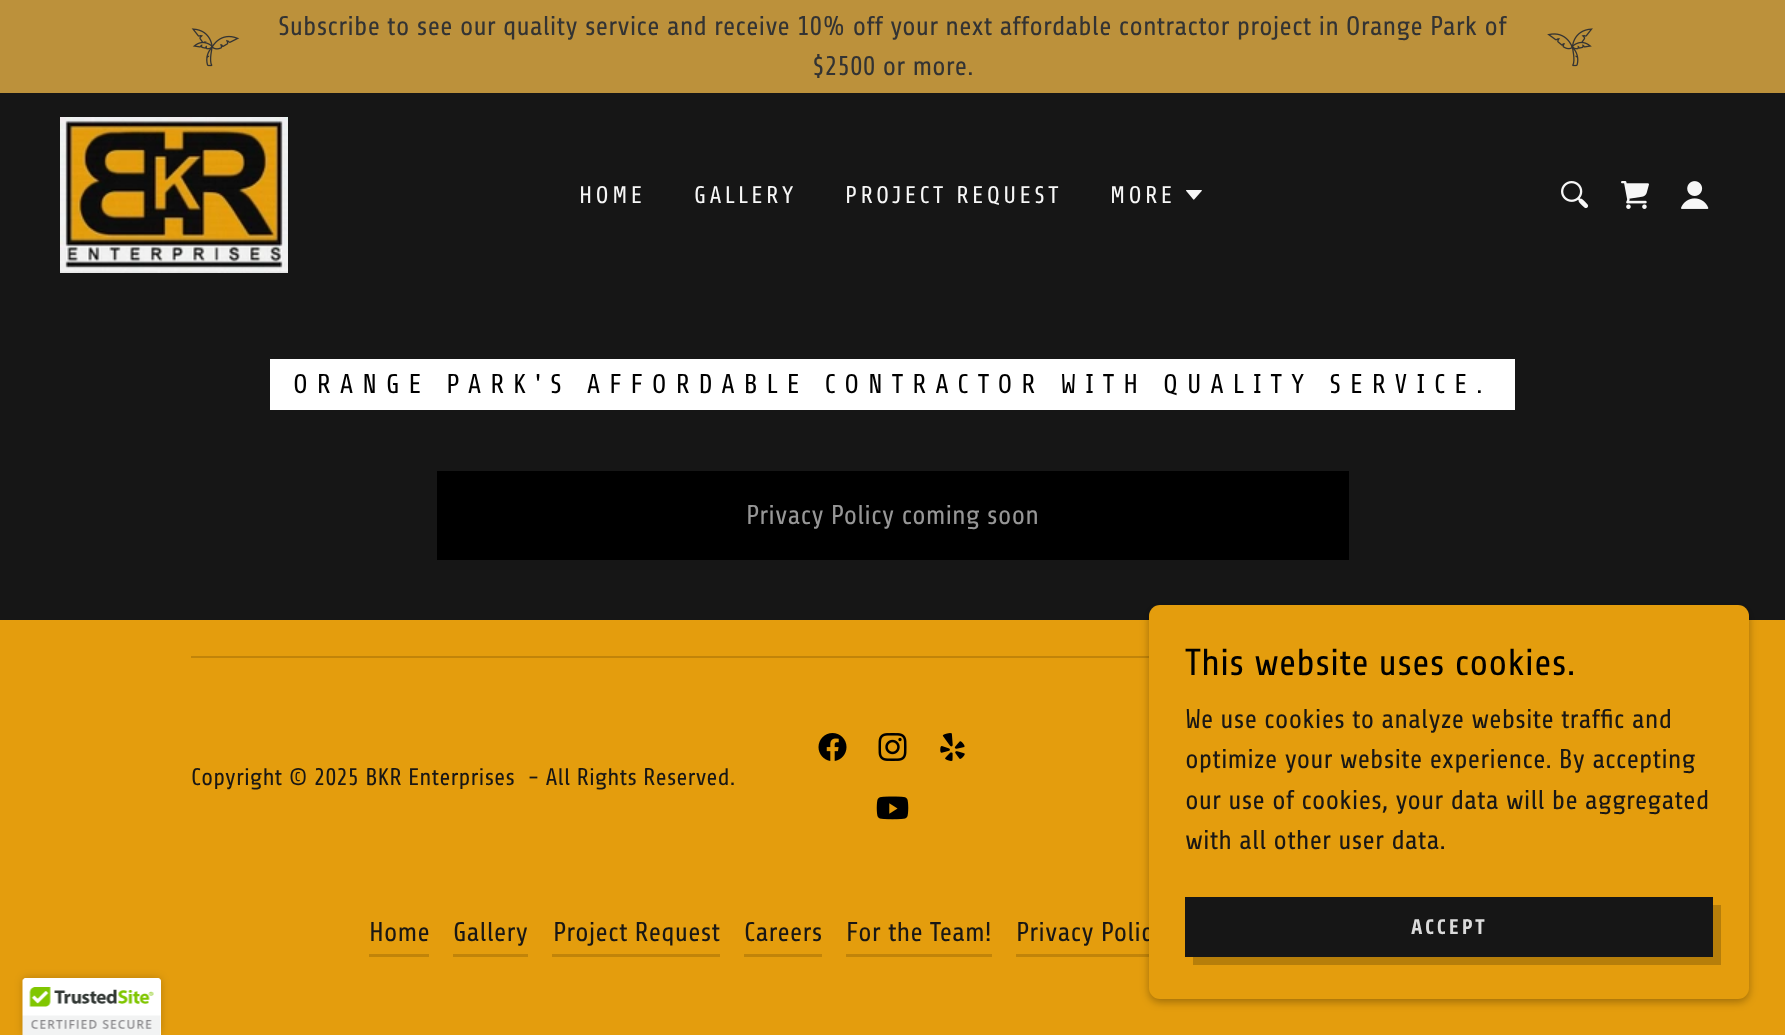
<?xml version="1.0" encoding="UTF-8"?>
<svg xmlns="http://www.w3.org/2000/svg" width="1785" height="1035">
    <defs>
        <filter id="blur1" x="-50%" y="-200%" width="200%" height="500%"><feGaussianBlur stdDeviation="4.5"/></filter>
        <filter id="blur2" x="-50%" y="-200%" width="200%" height="500%"><feGaussianBlur stdDeviation="4"/></filter>
    </defs>
    <rect width="100%" height="100%" fill="#E49D0D"/>
    <rect x="0" y="93" width="1785" height="527" fill="#161616"/>
    <rect x="0" y="0" width="1785" height="93" fill="#BC913B"/>
    <image x="191" y="28" width="49" height="39" href="img_01.png"/>
    <text x="278" y="35" font-family="Share" font-size="27" fill="#333333">Subscribe to see our quality service and receive 10% off your next affordable contractor project in Orange Park of</text>
    <text x="812" y="75" font-family="Share" font-size="27" fill="#333333">$2500 or more.</text>
    <image x="1547" y="28" width="46" height="39" href="img_02.png"/>
    <image x="60" y="117" width="228" height="156" href="img_03.png"/>
    <text x="579" y="203" font-family="Share" font-size="24" letter-spacing="3.4" fill="#F7F7F7">HOME</text>
    <text x="694" y="203" font-family="Share" font-size="24" letter-spacing="3.4" fill="#F7F7F7">GALLERY</text>
    <text x="845" y="203" font-family="Share" font-size="24" letter-spacing="3.4" fill="#F7F7F7">PROJECT REQUEST</text>
    <text x="1110" y="203" font-family="Share" font-size="24" letter-spacing="3.4" fill="#F7F7F7">MORE</text>
    <image x="1186" y="190" width="16" height="10" href="img_04.png"/>
    <image x="1561" y="181" width="28" height="28" href="img_05.png"/>
    <image x="1621" y="181" width="28" height="28" href="img_06.png"/>
    <image x="1681" y="181" width="28" height="28" href="img_07.png"/>
    <rect x="270" y="359" width="1245" height="51" fill="#FFFFFF"/>
    <text x="293" y="393" font-family="Share" font-size="27" letter-spacing="9" fill="#000000">ORANGE PARK'S AFFORDABLE CONTRACTOR WITH QUALITY SERVICE.</text>
    <rect x="437" y="471" width="912" height="89" fill="#000000"/>
    <text x="746" y="524" font-family="Share" font-size="27" fill="#969696">Privacy Policy coming soon</text>
    <rect x="191" y="656" width="958" height="2" fill="#C18409"/>
    <text x="191" y="785" font-family="Share" font-size="24" fill="#191715" xml:space="preserve">Copyright © 2025 BKR Enterprises  - All Rights Reserved.</text>
    <image x="818" y="733" width="29" height="28" href="img_08.png"/>
    <image x="878" y="733" width="29" height="28" href="img_09.png"/>
    <image x="940" y="733" width="25" height="28" href="img_10.png"/>
    <image x="876" y="796" width="33" height="24" href="img_11.png"/>
    <rect x="369" y="954" width="60" height="3" fill="#C18409"/>
    <text x="369" y="941" font-family="Share" font-size="27" fill="#191715">Home</text>
    <rect x="453" y="954" width="75" height="3" fill="#C18409"/>
    <text x="453" y="941" font-family="Share" font-size="27" fill="#191715">Gallery</text>
    <rect x="552" y="954" width="168" height="3" fill="#C18409"/>
    <text x="553" y="941" font-family="Share" font-size="27" fill="#191715">Project Request</text>
    <rect x="744" y="954" width="78" height="3" fill="#C18409"/>
    <text x="744" y="941" font-family="Share" font-size="27" fill="#191715">Careers</text>
    <rect x="846" y="954" width="146" height="3" fill="#C18409"/>
    <text x="846" y="941" font-family="Share" font-size="27" fill="#191715">For the Team!</text>
    <rect x="1016" y="954" width="133" height="3" fill="#C18409"/>
    <text x="1016" y="941" font-family="Share" font-size="27" fill="#191715">Privacy Polic</text>
    <rect x="1149" y="608" width="600" height="394" rx="11" fill="#000000" fill-opacity="0.3" filter="url(#blur1)"/>
    <rect x="1149" y="605" width="600" height="394" rx="11" fill="#E49D0D"/>
    <text x="1185" y="675" font-family="Share" font-size="37.5" fill="#000000">This website uses cookies.</text>
    <text font-family="Share" font-size="27" fill="#191715">
        <tspan x="1185" y="728">We use cookies to analyze website traffic and</tspan>
        <tspan x="1185" y="768">optimize your website experience. By accepting</tspan>
        <tspan x="1185" y="809">our use of cookies, your data will be aggregated</tspan>
        <tspan x="1185" y="849">with all other user data.</tspan>
    </text>
    <rect x="1185" y="897" width="528" height="60" fill="#161616"/>
    <path d="M 1193 957 V 965 H 1721 V 905 H 1713 V 957 Z" fill="#B67E0A"/>
    <text x="1411" y="934" font-family="Share" font-size="21" font-weight="700" letter-spacing="3" fill="#DBDBDB">ACCEPT</text>
    <rect x="23" y="978" width="138" height="57" rx="3" fill="#000000" fill-opacity="0.2" filter="url(#blur2)"/>
    <path d="M 26 978 H 158 C 159.5 978 161 979.5 161 981 V 1035 H 23 V 981 C 23 979.5 24.5 978 26 978 Z" fill="#FFFFFF"/>
    <image x="22" y="978" width="139" height="57" href="img_12.png"/>
</svg>
